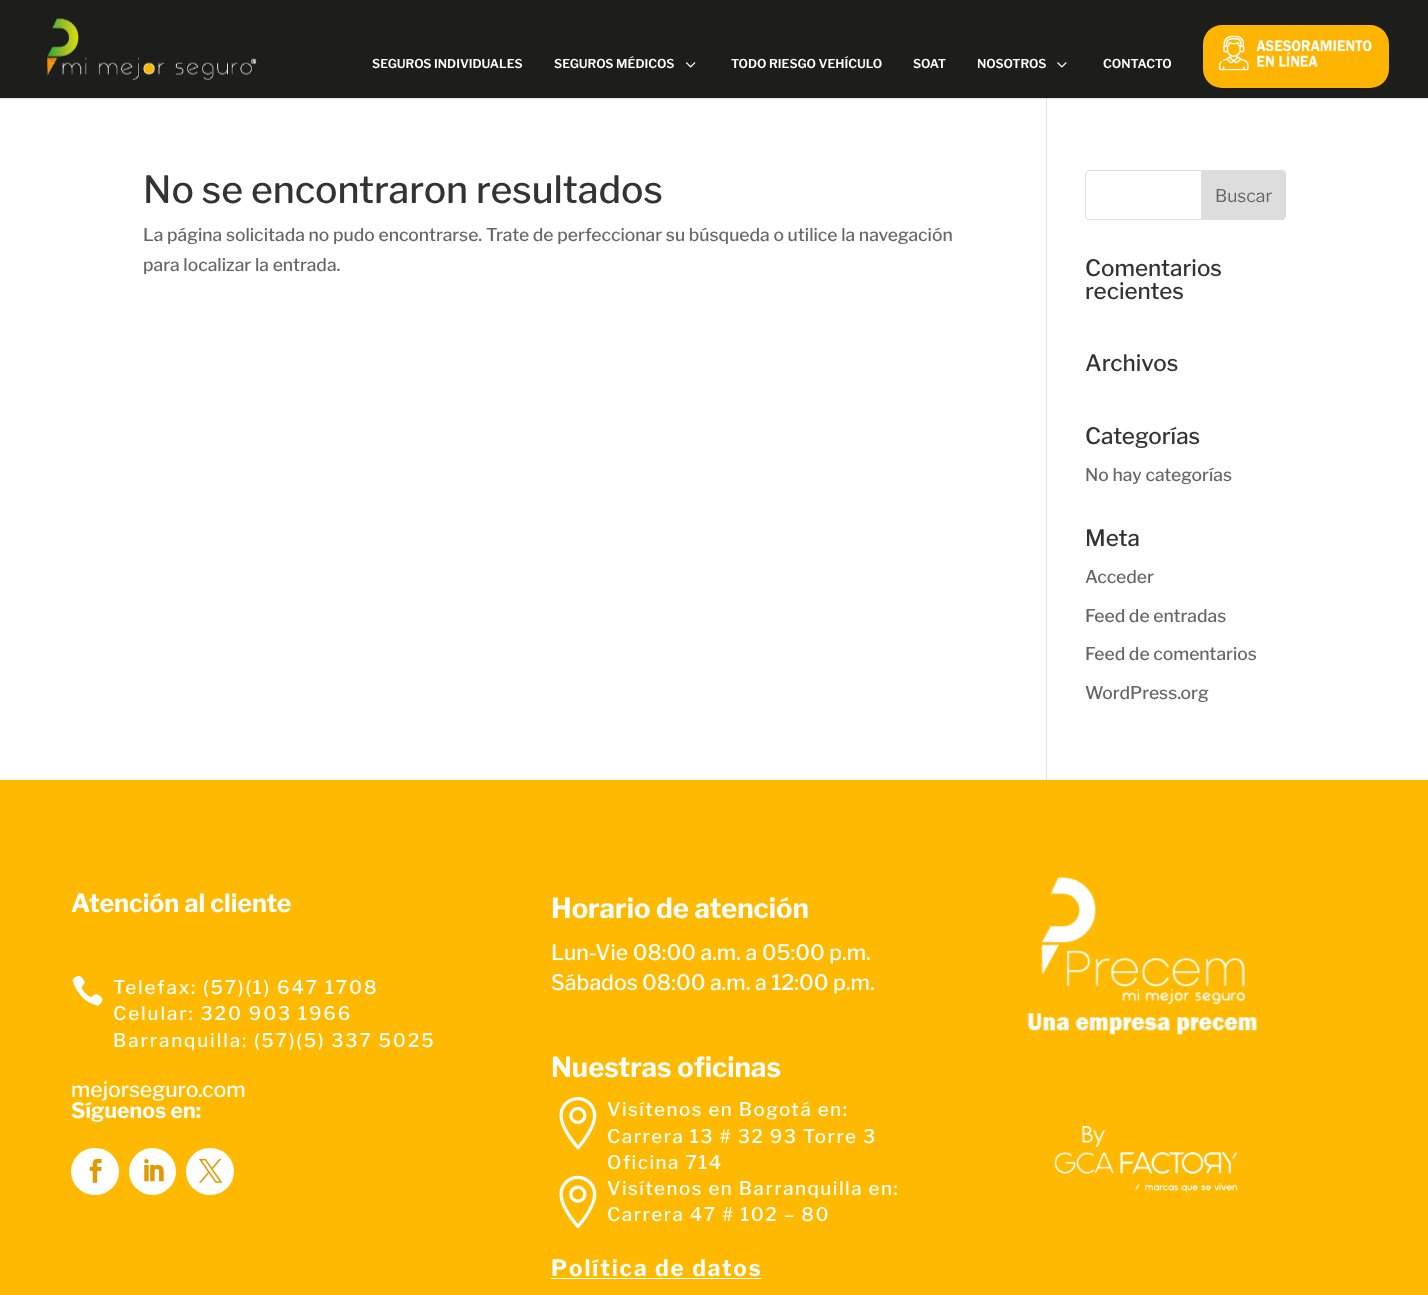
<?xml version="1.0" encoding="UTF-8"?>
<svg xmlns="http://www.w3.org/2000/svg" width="1428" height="1295">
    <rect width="100%" height="100%" fill="#FFFFFF"/>
    <rect x="1046" y="98" width="1" height="682" fill="#E2E2E2"/>
    <path d="M 0 98 V 99 H 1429 V 1 V 98 Z" fill="#000000" fill-opacity="0.1"/>
    <rect x="0" y="0" width="1428" height="98" fill="#1D1D1B"/>
    <image x="47" y="18" width="210" height="62" href="img_01.png"/>
    <text x="372" y="68" font-family="Libre Franklin" font-size="12.25" font-weight="600" fill="#FFFFFF">SEGUROS INDIVIDUALES</text>
    <text x="554" y="68" font-family="Libre Franklin" font-size="12.25" font-weight="600" fill="#FFFFFF">SEGUROS MÉDICOS</text>
    <image x="686" y="62" width="10" height="6" href="img_02.png"/>
    <text x="731" y="68" font-family="Libre Franklin" font-size="12.25" font-weight="600" fill="#FFFFFF">TODO RIESGO VEHÍCULO</text>
    <text x="913" y="68" font-family="Libre Franklin" font-size="12.25" font-weight="600" fill="#FFFFFF">SOAT</text>
    <text x="977" y="68" font-family="Libre Franklin" font-size="12.25" font-weight="600" fill="#FFFFFF">NOSOTROS</text>
    <image x="1057" y="62" width="10" height="6" href="img_03.png"/>
    <text x="1103" y="68" font-family="Libre Franklin" font-size="12.25" font-weight="600" fill="#FFFFFF">CONTACTO</text>
    <rect x="1203" y="25" width="186" height="63" rx="19" fill="#FFB400"/>
    <image x="1218" y="35" width="154" height="36" href="img_04.png"/>
    <text x="143" y="203" font-family="Libre Franklin" font-size="37.5" font-weight="500" fill="#333333">No se encontraron resultados</text>
    <text font-family="Libre Franklin" font-size="17.5" font-weight="500" fill="#666666">
        <tspan x="143" y="241">La página solicitada no pudo encontrarse. Trate de perfeccionar su búsqueda o utilice la navegación</tspan>
        <tspan x="143" y="271">para localizar la entrada.</tspan>
    </text>
    <rect x="1085.5" y="170.5" width="200" height="49" rx="3.5" fill="none" stroke="#DDDDDD"/>
    <path d="M 1201.5 170.5 H 1282 C 1284 170.5 1285.5 172 1285.5 174 V 216 C 1285.5 218 1284 219.5 1282 219.5 H 1201.5 Z" fill="#DDDDDD" stroke="#DDDDDD"/>
    <text x="1215" y="202" font-family="Libre Franklin" font-size="17.5" fill="#666666">Buscar</text>
    <text font-family="Libre Franklin" font-size="22.5" font-weight="500" fill="#333333">
        <tspan x="1085" y="276">Comentarios</tspan>
        <tspan x="1085" y="299">recientes</tspan>
    </text>
    <text x="1085" y="371" font-family="Libre Franklin" font-size="22.5" font-weight="500" fill="#333333">Archivos</text>
    <text x="1085" y="444" font-family="Libre Franklin" font-size="22.5" font-weight="500" fill="#333333">Categorías</text>
    <text x="1085" y="481" font-family="Libre Franklin" font-size="17.5" font-weight="500" fill="#666666">No hay categorías</text>
    <text x="1085" y="546" font-family="Libre Franklin" font-size="22.5" font-weight="500" fill="#333333">Meta</text>
    <text x="1085" y="583" font-family="Libre Franklin" font-size="17.5" font-weight="500" fill="#666666">Acceder</text>
    <text x="1085" y="622" font-family="Libre Franklin" font-size="17.5" font-weight="500" fill="#666666">Feed de entradas</text>
    <text x="1085" y="660" font-family="Libre Franklin" font-size="17.5" font-weight="500" fill="#666666">Feed de comentarios</text>
    <text x="1085" y="699" font-family="Libre Franklin" font-size="17.5" font-weight="500" fill="#666666">WordPress.org</text>
    <rect x="0" y="780" width="1428" height="515" fill="#FFB901"/>
    <text x="71" y="912" font-family="Libre Franklin" font-size="25" font-weight="700" fill="#FFFFFF">Atención al cliente</text>
    <image x="72" y="975" width="31" height="31" href="img_05.png"/>
    <text font-family="Libre Franklin" font-size="18.75" font-weight="500" letter-spacing="1.9" fill="#FFFFFF">
        <tspan x="113" y="994">Telefax: (57)(1) 647 1708</tspan>
        <tspan x="113" y="1020">Celular: 320 903 1966</tspan>
        <tspan x="113" y="1047">Barranquilla: (57)(5) 337 5025</tspan>
    </text>
    <text x="71" y="1097" font-family="Libre Franklin" font-size="21.25" font-weight="500" fill="#FFFFFF">mejorseguro.com</text>
    <text x="71" y="1118" font-family="Libre Franklin" font-size="21.25" font-weight="700" fill="#FFFFFF">Síguenos en:</text>
    <rect x="71" y="1148" width="48" height="47" rx="23.5" fill="#FFFFFF"/>
    <image x="89" y="1159" width="13" height="24" href="img_06.png"/>
    <circle cx="152.5" cy="1171.5" r="23.5" fill="#FFFFFF"/>
    <image x="144" y="1159" width="20" height="23" href="img_07.png"/>
    <rect x="186" y="1148" width="48" height="47" rx="23.5" fill="#FFFFFF"/>
    <image x="198" y="1159" width="25" height="24" href="img_08.png"/>
    <text x="551" y="918" font-family="Libre Franklin" font-size="27.5" font-weight="700" fill="#FFFFFF">Horario de atención</text>
    <text font-family="Libre Franklin" font-size="21.25" font-weight="500" fill="#FFFFFF">
        <tspan x="551" y="960">Lun-Vie 08:00 a.m. a 05:00 p.m.</tspan>
        <tspan x="551" y="990">Sábados 08:00 a.m. a 12:00 p.m.</tspan>
    </text>
    <text x="551" y="1077" font-family="Libre Franklin" font-size="27.5" font-weight="700" fill="#FFFFFF">Nuestras oficinas</text>
    <image x="559" y="1097" width="38" height="53" href="img_09.png"/>
    <text font-family="Libre Franklin" font-size="18.75" font-weight="500" letter-spacing="1.5" fill="#FFFFFF">
        <tspan x="607" y="1116">Visítenos en Bogotá en:</tspan>
        <tspan x="607" y="1143">Carrera 13 # 32 93 Torre 3</tspan>
        <tspan x="607" y="1169">Oficina 714</tspan>
    </text>
    <image x="559" y="1175" width="38" height="54" href="img_10.png"/>
    <text font-family="Libre Franklin" font-size="18.75" font-weight="500" letter-spacing="1.5" fill="#FFFFFF">
        <tspan x="607" y="1195">Visítenos en Barranquilla en:</tspan>
        <tspan x="607" y="1221">Carrera 47 # 102 – 80</tspan>
    </text>
    <text x="551" y="1276" font-family="Libre Franklin" font-size="22.5" font-weight="700" letter-spacing="1.9" fill="#FFFFFF">P</text>
    <rect x="551" y="1278" width="210" height="1" fill="#FFFFFF"/>
    <text x="569" y="1276" font-family="Libre Franklin" font-size="22.5" font-weight="700" letter-spacing="1.9" fill="#FFFFFF">olítica de datos</text>
    <image x="1027" y="877" width="230" height="158" href="img_11.png"/>
    <image x="1054" y="1126" width="184" height="67" href="img_12.png"/>
</svg>
